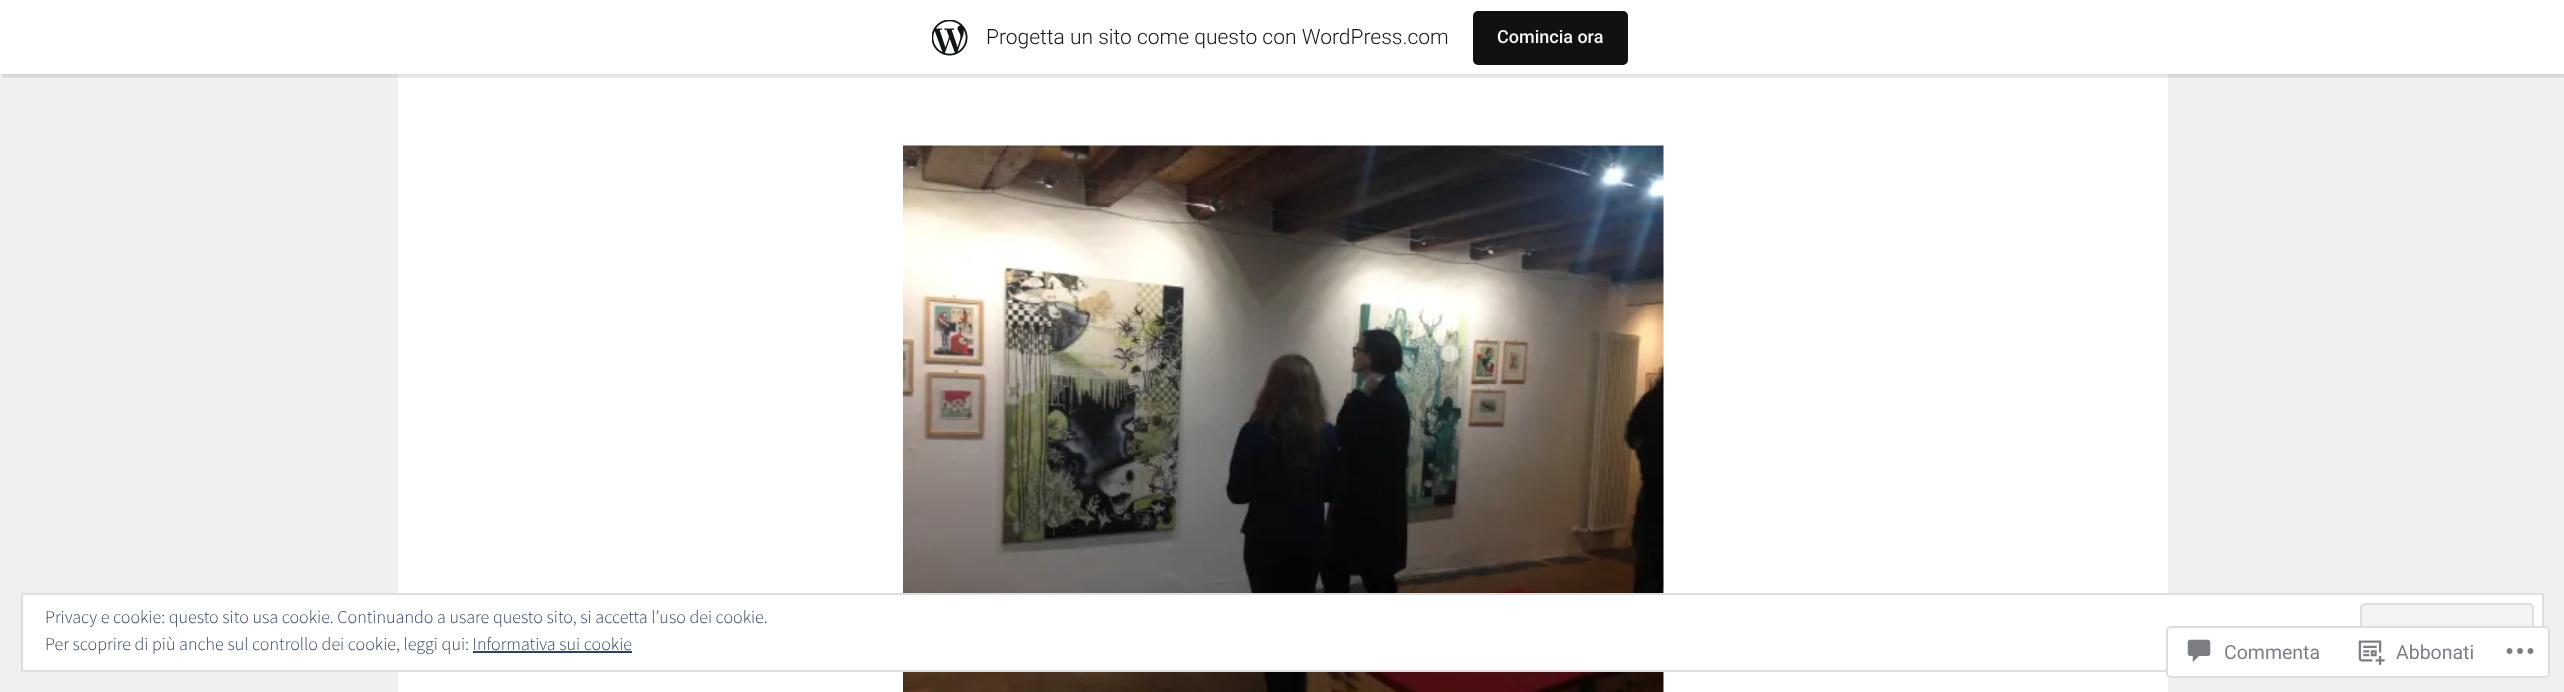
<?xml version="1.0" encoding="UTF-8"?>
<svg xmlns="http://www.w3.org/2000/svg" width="2564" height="692">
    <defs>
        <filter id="blur1" x="-50%" y="-200%" width="200%" height="500%"><feGaussianBlur stdDeviation="1.5"/></filter>
    </defs>
    <rect width="100%" height="100%" fill="#F0F0F0"/>
    <rect x="398" y="74" width="1770" height="618" fill="#FFFFFF"/>
    <rect x="0" y="2" width="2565" height="73" fill="#000000" fill-opacity="0.05" filter="url(#blur1)"/>
    <path d="M 2 74 V 78 H 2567 V 5 H 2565 V 74 Z" fill="#000000" fill-opacity="0.08"/>
    <rect x="0" y="0" width="2564" height="74" fill="#FFFFFF"/>
    <image x="932" y="20" width="36" height="36" href="img_01.png"/>
    <text x="986" y="44" font-family="Roboto" font-size="21" font-weight="300" fill="#171717">Progetta un sito come questo con WordPress.com</text>
    <rect x="1473" y="11" width="155" height="54" rx="5" fill="#111111"/>
    <text x="1497" y="43" font-family="Roboto" font-size="18" font-weight="500" fill="#F6F7F7">Comincia ora</text>
    <image x="903" y="145" width="761" height="547" href="img_02.png"/>
    <rect x="22" y="594" width="2521" height="77" fill="#FFFFFF" stroke="#DEDEDE" stroke-width="2"/>
    <text x="45" y="623" font-family="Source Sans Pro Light" font-size="18" font-weight="300" fill="#2E4467">Privacy e cookie: questo sito usa cookie. Continuando a usare questo sito, si accetta l’uso dei cookie.</text>
    <rect x="2360" y="603" width="174" height="59" rx="5" fill="#F3F3F3"/>
    <path d="M 2361 654 V 657 C 2361 659 2362 660 2364 660 H 2529 C 2531 660 2532 659 2532 657 V 654 C 2532 656 2531 657 2529 657 H 2363 L 2362 656 Z" fill="#DBDBDB"/>
    <rect x="2361" y="604" width="172" height="57" rx="4" fill="none" stroke="#DEDEDE" stroke-width="2"/>
    <text x="45" y="650" font-family="Source Sans Pro Light" font-size="18" font-weight="300" fill="#2E4467">Per scoprire di più anche sul controllo dei cookie, leggi qui: Informativa sui cookie</text>
    <rect x="473" y="651" width="159" height="2" fill="#2E4467"/>
    <rect x="2166" y="626" width="384" height="52" rx="5" fill="#FFFFFF" fill-opacity="0.98"/>
    <rect x="2167" y="627" width="382" height="50" rx="4" fill="none" stroke="#DCDCDE" stroke-opacity="0.98" stroke-width="2"/>
    <image x="2187" y="639" width="24" height="24" href="img_03.png"/>
    <text x="2224" y="659" font-family="Roboto" font-size="19.5" fill="#7B7F85">Commenta</text>
    <image x="2358" y="640" width="27" height="25" href="img_04.png"/>
    <text x="2396" y="659" font-family="Roboto" font-size="19.5" fill="#7B7F85">Abbonati</text>
    <image x="2506" y="648" width="28" height="6" href="img_05.png"/>
</svg>
